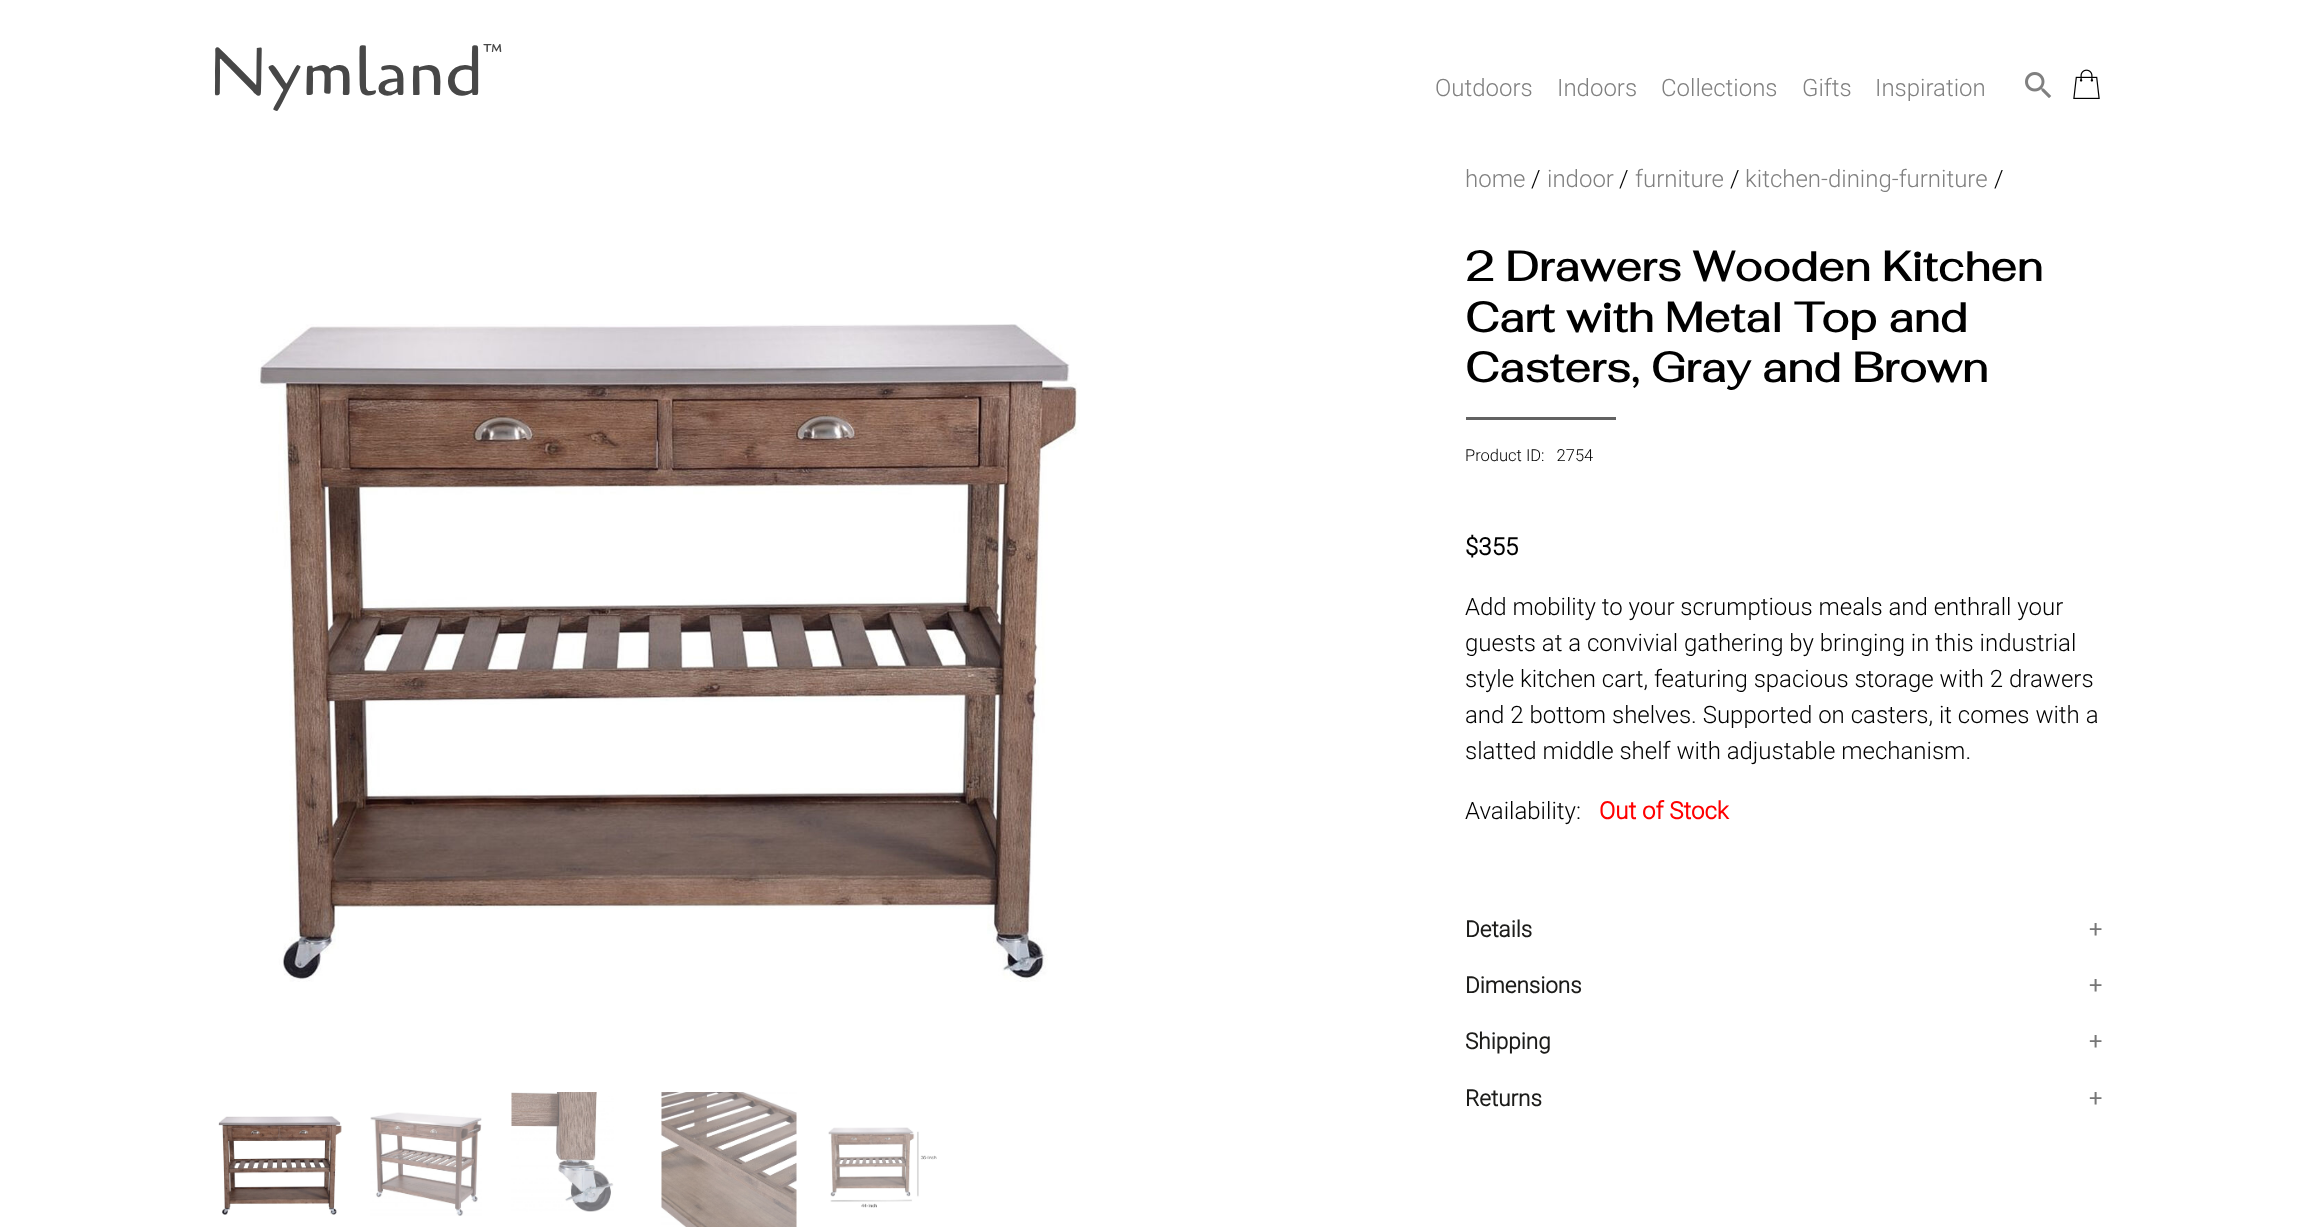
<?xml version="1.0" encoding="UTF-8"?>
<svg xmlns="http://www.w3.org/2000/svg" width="2312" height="1227">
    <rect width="100%" height="100%" fill="#FFFFFF"/>
    <text x="209" y="95" font-family="Cagliostro" font-size="67.5" fill="#474747">Nymland</text>
    <text x="483" y="58" font-family="Cagliostro" font-size="20" fill="#474747">™</text>
    <text x="1435" y="96" font-family="Roboto" font-size="24" font-weight="300" fill="#808080">Outdoors</text>
    <text x="1557" y="96" font-family="Roboto" font-size="24" font-weight="300" fill="#808080">Indoors</text>
    <text x="1661" y="96" font-family="Roboto" font-size="24" font-weight="300" fill="#808080">Collections</text>
    <text x="1802" y="96" font-family="Roboto" font-size="24" font-weight="300" fill="#808080">Gifts</text>
    <text x="1875" y="96" font-family="Roboto" font-size="24" font-weight="300" fill="#808080">Inspiration</text>
    <image x="2025" y="72" width="27" height="26" href="img_01.png"/>
    <image x="2073" y="69" width="27" height="30" href="img_02.png"/>
    <image x="258" y="324" width="822" height="658" href="img_03.png"/>
    <image x="218" y="1116" width="124" height="99" href="img_04.png"/>
    <image x="370" y="1112" width="112" height="104" href="img_05.png"/>
    <image x="511" y="1092" width="103" height="120" href="img_06.png"/>
    <image x="661" y="1092" width="136" height="135" href="img_07.png"/>
    <image x="828" y="1127" width="109" height="81" href="img_08.png"/>
    <text x="1465" y="187" font-family="Roboto" font-size="24" font-weight="300" fill="#808080">home</text>
    <text x="1531" y="187" font-family="Roboto" font-size="24" font-weight="300" fill="#000000">/</text>
    <text x="1547" y="187" font-family="Roboto" font-size="24" font-weight="300" fill="#808080">indoor</text>
    <text x="1619" y="187" font-family="Roboto" font-size="24" font-weight="300" fill="#000000">/</text>
    <text x="1635" y="187" font-family="Roboto" font-size="24" font-weight="300" fill="#808080">furniture</text>
    <text x="1730" y="187" font-family="Roboto" font-size="24" font-weight="300" fill="#000000">/</text>
    <text x="1745" y="187" font-family="Roboto" font-size="24" font-weight="300" fill="#808080">kitchen-dining-furniture</text>
    <text x="1994" y="187" font-family="Roboto" font-size="24" font-weight="300" fill="#000000">/</text>
    <text font-family="Fahkwang" font-size="42" font-weight="700" fill="#000000">
        <tspan x="1465" y="281">2 Drawers Wooden Kitchen</tspan>
        <tspan x="1465" y="332">Cart with Metal Top and</tspan>
        <tspan x="1465" y="382">Casters, Gray and Brown</tspan>
    </text>
    <rect x="1466" y="417" width="150" height="3" fill="#626262"/>
    <text x="1465" y="461" font-family="Roboto" font-size="16.5" font-weight="300" fill="#000000" xml:space="preserve">Product ID:   2754</text>
    <text x="1465" y="555" font-family="Roboto" font-size="24" font-weight="700" fill="#000000">$355</text>
    <text font-family="Roboto" font-size="24" font-weight="300" fill="#000000">
        <tspan x="1465" y="615">Add mobility to your scrumptious meals and enthrall your</tspan>
        <tspan x="1465" y="651">guests at a convivial gathering by bringing in this industrial</tspan>
        <tspan x="1465" y="687">style kitchen cart, featuring spacious storage with 2 drawers</tspan>
        <tspan x="1465" y="723">and 2 bottom shelves. Supported on casters, it comes with a</tspan>
        <tspan x="1465" y="759">slatted middle shelf with adjustable mechanism.</tspan>
    </text>
    <text x="1465" y="819" font-family="Roboto" font-size="24" font-weight="300" fill="#000000">Availability:</text>
    <text x="1599" y="819" font-family="Roboto" font-size="24" font-weight="700" fill="#FF0000">Out of Stock</text>
    <text x="1465" y="937" font-family="Roboto" font-size="22.5" font-weight="700" fill="#1C1C1A">Details</text>
    <text x="2089" y="937" font-family="Roboto" font-size="22.5" font-weight="700" fill="#777777">+</text>
    <text x="1465" y="993" font-family="Roboto" font-size="22.5" font-weight="700" fill="#1C1C1A">Dimensions</text>
    <text x="2089" y="993" font-family="Roboto" font-size="22.5" font-weight="700" fill="#777777">+</text>
    <text x="1465" y="1049" font-family="Roboto" font-size="22.5" font-weight="700" fill="#1C1C1A">Shipping</text>
    <text x="2089" y="1049" font-family="Roboto" font-size="22.5" font-weight="700" fill="#777777">+</text>
    <text x="1465" y="1106" font-family="Roboto" font-size="22.5" font-weight="700" fill="#1C1C1A">Returns</text>
    <text x="2089" y="1106" font-family="Roboto" font-size="22.5" font-weight="700" fill="#777777">+</text>
</svg>
